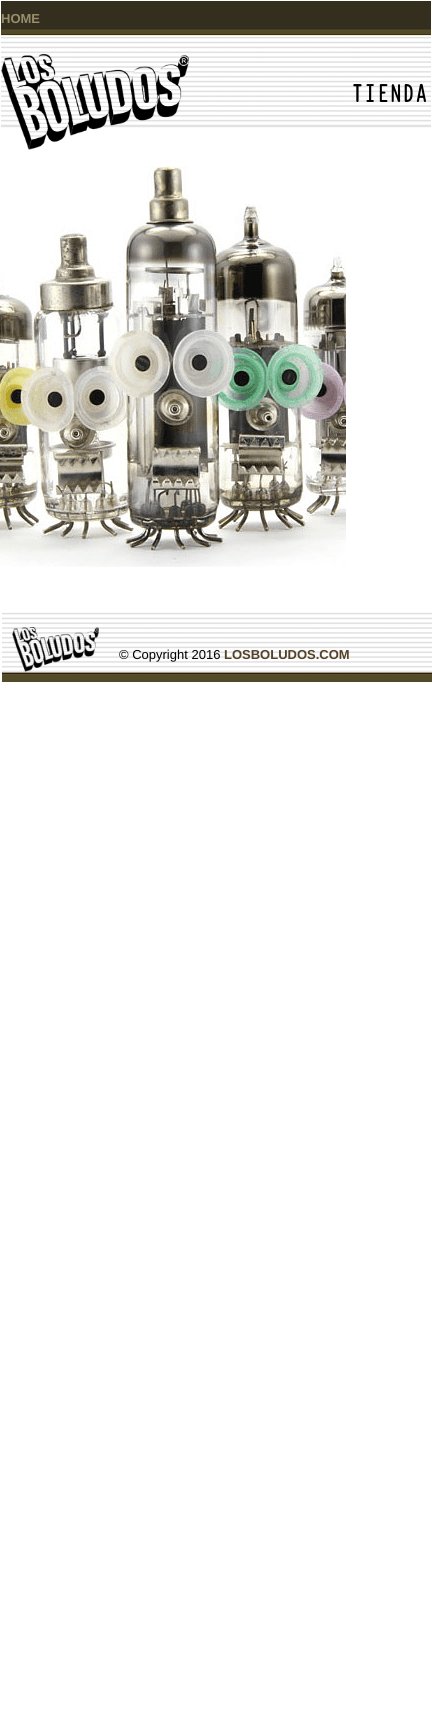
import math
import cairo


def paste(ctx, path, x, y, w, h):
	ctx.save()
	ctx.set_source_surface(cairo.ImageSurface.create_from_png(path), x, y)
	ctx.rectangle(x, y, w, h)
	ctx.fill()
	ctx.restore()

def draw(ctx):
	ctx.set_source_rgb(1, 1, 1)
	ctx.paint()
	paste(ctx, 'media/1.png', 1, 1, 430, 127)
	ctx.select_font_face('Liberation Sans', cairo.FONT_SLANT_NORMAL, cairo.FONT_WEIGHT_BOLD)
	ctx.set_font_size(13)
	ctx.set_source_rgb(0.592, 0.557, 0.424)
	ctx.move_to(1, 23)
	ctx.show_text('HOME')
	paste(ctx, 'media/2.png', 1, 54, 188, 96)
	ctx.select_font_face('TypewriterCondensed', cairo.FONT_SLANT_NORMAL, cairo.FONT_WEIGHT_BOLD)
	ctx.set_font_size(28.5)
	ctx.set_source_rgb(0, 0, 0)
	ctx.move_to(351, 102)
	ctx.show_text('TIENDA')
	paste(ctx, 'media/3.png', 0, 166, 346, 401)
	ctx.set_source_rgb(0.325, 0.29, 0.157)
	ctx.rectangle(2, 675, 430, 7)
	ctx.fill()
	paste(ctx, 'media/4.png', 2, 612, 430, 63)
	paste(ctx, 'media/5.png', 12, 627, 87, 45)
	ctx.select_font_face('Liberation Sans')
	ctx.set_font_size(13)
	ctx.set_source_rgb(0, 0, 0)
	ctx.move_to(119, 659)
	ctx.show_text('© Copyright 2016')
	ctx.select_font_face('Liberation Sans', cairo.FONT_SLANT_NORMAL, cairo.FONT_WEIGHT_BOLD)
	ctx.set_source_rgb(0.325, 0.255, 0.157)
	ctx.move_to(224, 659)
	ctx.show_text('LOSBOLUDOS.COM')


surface = cairo.ImageSurface(cairo.FORMAT_RGB24, 432, 1729)
ctx = cairo.Context(surface)
options = cairo.FontOptions()
options.set_hint_metrics(cairo.HINT_METRICS_OFF)
options.set_hint_style(cairo.HINT_STYLE_NONE)
ctx.set_font_options(options)
ctx.set_miter_limit(4)
draw(ctx)
surface.write_to_png('image.png')
